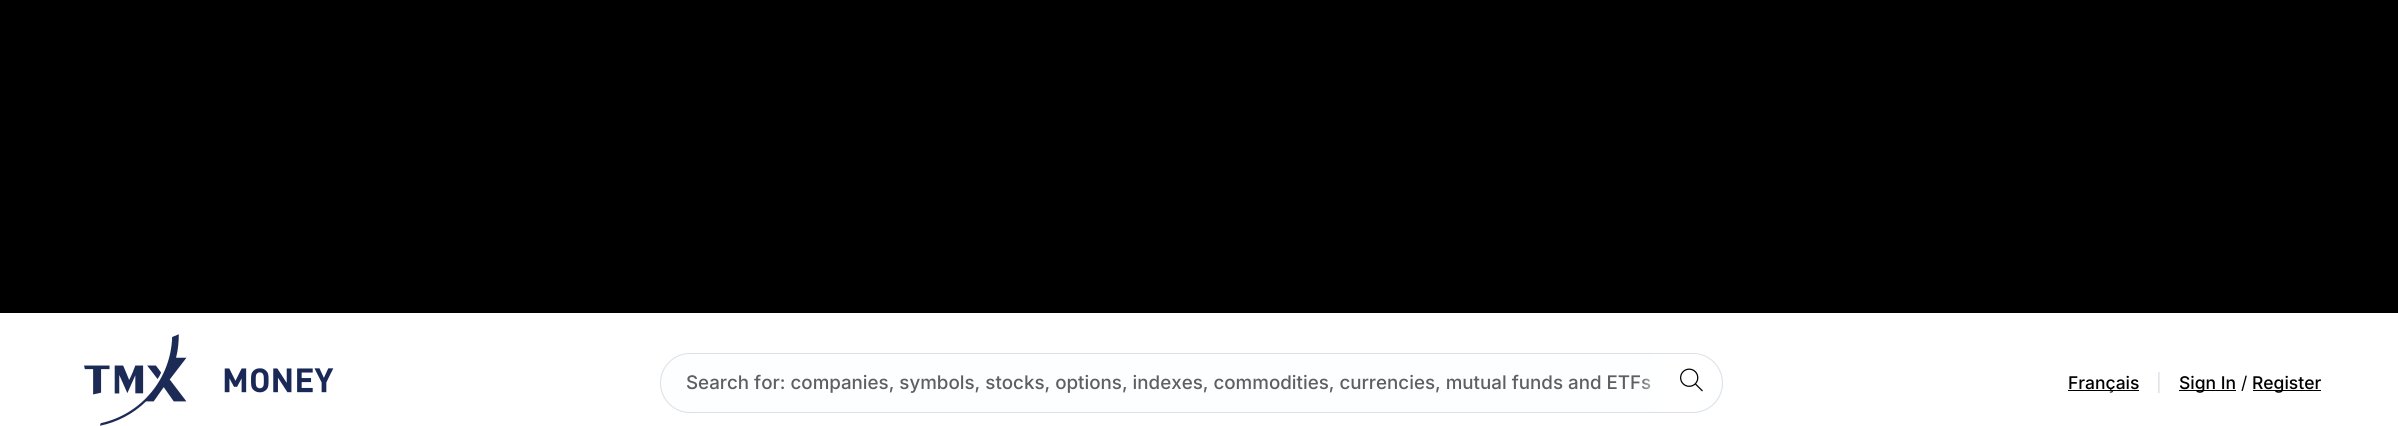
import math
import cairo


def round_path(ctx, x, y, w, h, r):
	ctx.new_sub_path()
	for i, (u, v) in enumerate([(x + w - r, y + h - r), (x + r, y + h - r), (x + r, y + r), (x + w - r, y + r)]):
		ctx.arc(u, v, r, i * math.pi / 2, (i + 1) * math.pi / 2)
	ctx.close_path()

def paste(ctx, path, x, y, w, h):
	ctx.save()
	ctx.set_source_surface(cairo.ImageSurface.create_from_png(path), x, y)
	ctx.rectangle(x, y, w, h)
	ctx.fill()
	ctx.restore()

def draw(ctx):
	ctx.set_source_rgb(1, 1, 1)
	ctx.paint()
	ctx.set_source_rgb(0, 0, 0)
	ctx.rectangle(0, 0, 2398, 313)
	ctx.fill()
	paste(ctx, 'media/1.png', 84, 334, 250, 92)
	ctx.set_source_rgb(0.988, 0.996, 1)
	round_path(ctx, 660.5, 353.5, 1062, 59, 29.5)
	ctx.fill_preserve()
	ctx.set_source_rgb(0.855, 0.878, 0.902)
	ctx.set_line_width(1)
	ctx.stroke()
	ctx.select_font_face('Inter Medium')
	ctx.set_font_size(18.75)
	ctx.set_source_rgb(0.373, 0.373, 0.376)
	ctx.move_to(686, 389)
	ctx.show_text('Search for: companies, symbols, stocks, options, indexes, commodities, currencies, mutual funds and ETFs')
	gradient = cairo.LinearGradient(1639, 383, 1721, 383)
	gradient.add_color_stop_rgba(0, 1, 1, 1, 0)
	gradient.add_color_stop_rgba(0.3, 1, 1, 1, 1)
	gradient.add_color_stop_rgba(1, 1, 1, 1, 1)
	ctx.set_source(gradient)
	ctx.new_path()
	ctx.move_to(1639, 354)
	ctx.line_to(1692.5, 354)
	ctx.curve_to(1708, 354, 1721, 367, 1721, 382.5)
	ctx.curve_to(1721, 398, 1708, 411, 1692.5, 411)
	ctx.line_to(1639, 411)
	ctx.close_path()
	ctx.fill()
	paste(ctx, 'media/2.png', 1680, 368, 23, 24)
	ctx.set_source_rgb(0, 0, 0)
	ctx.rectangle(2068, 390, 71, 1)
	ctx.fill()
	ctx.set_font_size(17.5)
	ctx.move_to(2068, 389)
	ctx.show_text('Français')
	ctx.select_font_face('Inter')
	ctx.set_source_rgb(0.855, 0.878, 0.902)
	ctx.move_to(2156, 389)
	ctx.show_text('|')
	ctx.set_source_rgb(0, 0, 0)
	ctx.rectangle(2179, 390, 57, 1)
	ctx.fill()
	ctx.select_font_face('Inter Medium')
	ctx.move_to(2179, 389)
	ctx.show_text('Sign In')
	ctx.select_font_face('Inter')
	ctx.move_to(2241, 389)
	ctx.show_text('/')
	ctx.rectangle(2253, 390, 68, 1)
	ctx.fill()
	ctx.select_font_face('Inter Medium')
	ctx.move_to(2252, 389)
	ctx.show_text('Register')


surface = cairo.ImageSurface(cairo.FORMAT_RGB24, 2398, 426)
ctx = cairo.Context(surface)
options = cairo.FontOptions()
options.set_hint_metrics(cairo.HINT_METRICS_OFF)
options.set_hint_style(cairo.HINT_STYLE_NONE)
ctx.set_font_options(options)
ctx.set_miter_limit(4)
draw(ctx)
surface.write_to_png('image.png')
